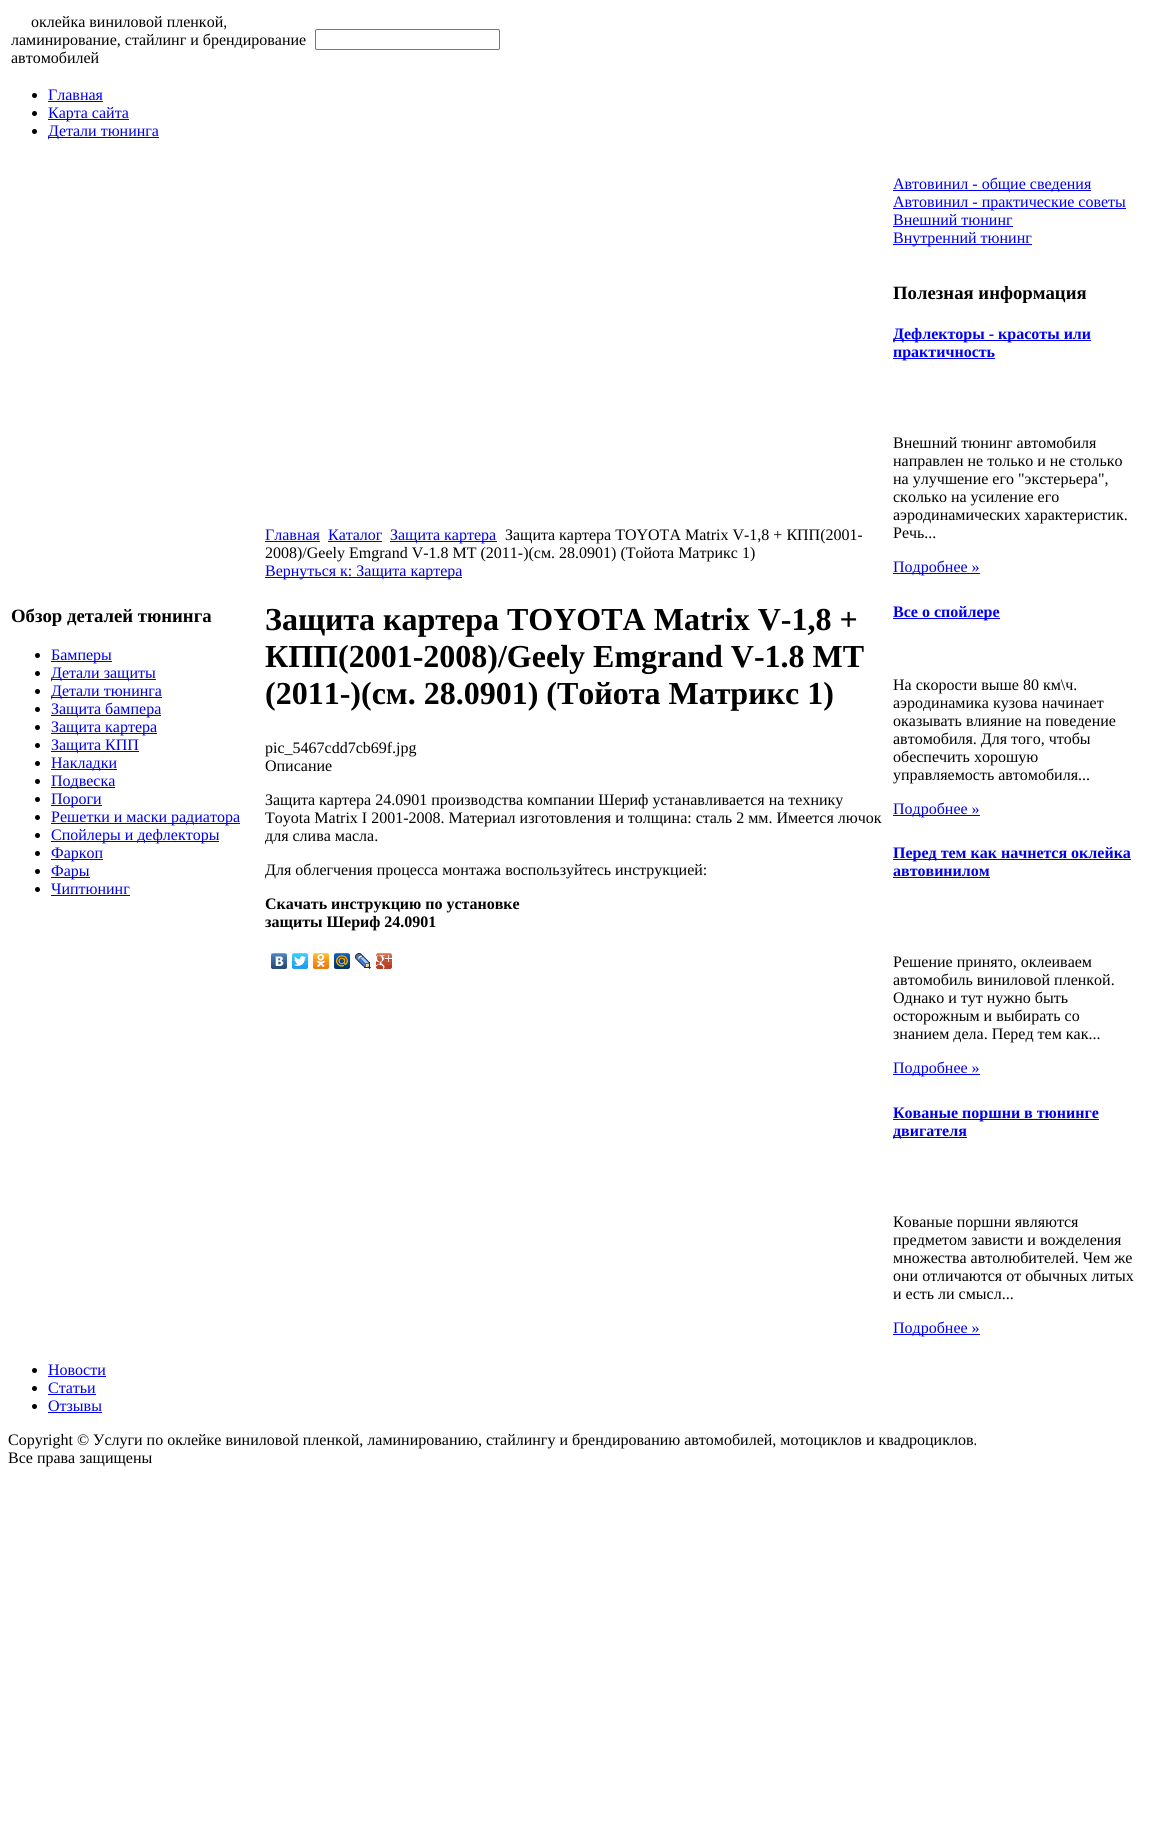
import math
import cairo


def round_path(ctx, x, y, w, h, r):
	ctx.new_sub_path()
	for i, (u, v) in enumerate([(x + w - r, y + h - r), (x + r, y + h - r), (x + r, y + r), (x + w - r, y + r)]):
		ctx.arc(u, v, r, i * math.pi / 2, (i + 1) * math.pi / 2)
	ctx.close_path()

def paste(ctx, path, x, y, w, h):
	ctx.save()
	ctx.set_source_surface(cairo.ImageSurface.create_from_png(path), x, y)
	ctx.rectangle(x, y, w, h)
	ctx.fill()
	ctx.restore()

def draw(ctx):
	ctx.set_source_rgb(1, 1, 1)
	ctx.paint()
	ctx.select_font_face('Liberation Serif')
	ctx.set_font_size(16)
	ctx.set_source_rgb(0, 0, 0)
	for x, y, s in [
		(31, 27, 'оклейка виниловой пленкой,'),
		(11, 45, 'ламинирование, стайлинг и брендирование'),
		(11, 63, 'автомобилей'),
	]:
		ctx.move_to(x, y)
		ctx.show_text(s)
	round_path(ctx, 315.5, 29.5, 184, 20, 1.5)
	ctx.set_source_rgb(0.463, 0.463, 0.463)
	ctx.set_line_width(1)
	ctx.stroke()
	ctx.set_source_rgb(0, 0, 0)
	ctx.arc(34.5, 95.5, 2.5, 0, 2 * math.pi)
	ctx.fill()
	ctx.set_source_rgb(0, 0, 0.933)
	ctx.move_to(48, 100)
	ctx.show_text('Главная')
	ctx.rectangle(48, 101, 55, 1)
	ctx.fill()
	ctx.set_source_rgb(0, 0, 0)
	ctx.arc(34.5, 113.5, 2.5, 0, 2 * math.pi)
	ctx.fill()
	ctx.set_source_rgb(0, 0, 0.933)
	ctx.rectangle(48, 119, 81, 1)
	ctx.fill()
	ctx.move_to(48, 118)
	ctx.show_text('Карта сайта')
	ctx.set_source_rgb(0, 0, 0)
	ctx.new_path()
	ctx.arc(34.5, 131.5, 2.5, 0, 2 * math.pi)
	ctx.fill()
	ctx.set_source_rgb(0, 0, 0.933)
	ctx.rectangle(48, 137, 111, 1)
	ctx.fill()
	ctx.move_to(48, 136)
	ctx.show_text('Детали тюнинга')
	ctx.select_font_face('Liberation Serif', cairo.FONT_SLANT_NORMAL, cairo.FONT_WEIGHT_BOLD)
	ctx.set_font_size(18.75)
	ctx.set_source_rgb(0, 0, 0)
	ctx.move_to(11, 622)
	ctx.show_text('Обзор деталей тюнинга')
	ctx.new_path()
	ctx.arc(37.5, 655.5, 2.5, 0, 2 * math.pi)
	ctx.fill()
	ctx.set_source_rgb(0, 0, 0.933)
	ctx.rectangle(51, 661, 61, 1)
	ctx.fill()
	ctx.select_font_face('Liberation Serif')
	ctx.set_font_size(16)
	ctx.move_to(51, 660)
	ctx.show_text('Бамперы')
	ctx.set_source_rgb(0, 0, 0)
	ctx.new_path()
	ctx.arc(37.5, 673.5, 2.5, 0, 2 * math.pi)
	ctx.fill()
	ctx.set_source_rgb(0, 0, 0.933)
	ctx.rectangle(51, 679, 105, 1)
	ctx.fill()
	ctx.move_to(51, 678)
	ctx.show_text('Детали защиты')
	ctx.set_source_rgb(0, 0, 0)
	ctx.new_path()
	ctx.arc(37.5, 691.5, 2.5, 0, 2 * math.pi)
	ctx.fill()
	ctx.set_source_rgb(0, 0, 0.933)
	ctx.rectangle(51, 697, 111, 1)
	ctx.fill()
	ctx.move_to(51, 696)
	ctx.show_text('Детали тюнинга')
	ctx.set_source_rgb(0, 0, 0)
	ctx.new_path()
	ctx.arc(37.5, 709.5, 2.5, 0, 2 * math.pi)
	ctx.fill()
	ctx.set_source_rgb(0, 0, 0.933)
	ctx.rectangle(51, 715, 110, 1)
	ctx.fill()
	ctx.move_to(51, 714)
	ctx.show_text('Защита бампера')
	ctx.set_source_rgb(0, 0, 0)
	ctx.new_path()
	ctx.arc(37.5, 727.5, 2.5, 0, 2 * math.pi)
	ctx.fill()
	ctx.set_source_rgb(0, 0, 0.933)
	ctx.rectangle(51, 733, 106, 1)
	ctx.fill()
	ctx.move_to(51, 732)
	ctx.show_text('Защита картера')
	ctx.set_source_rgb(0, 0, 0)
	ctx.new_path()
	ctx.arc(37.5, 745.5, 2.5, 0, 2 * math.pi)
	ctx.fill()
	ctx.set_source_rgb(0, 0, 0.933)
	ctx.rectangle(51, 751, 88, 1)
	ctx.fill()
	ctx.move_to(51, 750)
	ctx.show_text('Защита КПП')
	ctx.set_source_rgb(0, 0, 0)
	ctx.new_path()
	ctx.arc(37.5, 763.5, 2.5, 0, 2 * math.pi)
	ctx.fill()
	ctx.set_source_rgb(0, 0, 0.933)
	ctx.rectangle(51, 769, 66, 1)
	ctx.fill()
	ctx.move_to(51, 768)
	ctx.show_text('Накладки')
	ctx.set_source_rgb(0, 0, 0)
	ctx.new_path()
	ctx.arc(37.5, 781.5, 2.5, 0, 2 * math.pi)
	ctx.fill()
	ctx.set_source_rgb(0, 0, 0.933)
	ctx.rectangle(51, 787, 64, 1)
	ctx.fill()
	ctx.move_to(51, 786)
	ctx.show_text('Подвеска')
	ctx.set_source_rgb(0, 0, 0)
	ctx.new_path()
	ctx.arc(37.5, 799.5, 2.5, 0, 2 * math.pi)
	ctx.fill()
	ctx.set_source_rgb(0, 0, 0.933)
	ctx.rectangle(51, 805, 51, 1)
	ctx.fill()
	ctx.move_to(51, 804)
	ctx.show_text('Пороги')
	ctx.set_source_rgb(0, 0, 0)
	ctx.new_path()
	ctx.arc(37.5, 817.5, 2.5, 0, 2 * math.pi)
	ctx.fill()
	ctx.set_source_rgb(0, 0, 0.933)
	ctx.rectangle(51, 823, 189, 1)
	ctx.fill()
	ctx.move_to(51, 822)
	ctx.show_text('Решетки и маски радиатора')
	ctx.set_source_rgb(0, 0, 0)
	ctx.new_path()
	ctx.arc(37.5, 835.5, 2.5, 0, 2 * math.pi)
	ctx.fill()
	ctx.set_source_rgb(0, 0, 0.933)
	ctx.rectangle(51, 841, 168, 1)
	ctx.fill()
	ctx.move_to(51, 840)
	ctx.show_text('Спойлеры и дефлекторы')
	ctx.set_source_rgb(0, 0, 0)
	ctx.new_path()
	ctx.arc(37.5, 853.5, 2.5, 0, 2 * math.pi)
	ctx.fill()
	ctx.set_source_rgb(0, 0, 0.933)
	ctx.rectangle(51, 859, 52, 1)
	ctx.fill()
	ctx.move_to(51, 858)
	ctx.show_text('Фаркоп')
	ctx.set_source_rgb(0, 0, 0)
	ctx.new_path()
	ctx.arc(37.5, 871.5, 2.5, 0, 2 * math.pi)
	ctx.fill()
	ctx.set_source_rgb(0, 0, 0.933)
	ctx.rectangle(51, 877, 39, 1)
	ctx.fill()
	ctx.move_to(51, 876)
	ctx.show_text('Фары')
	ctx.set_source_rgb(0, 0, 0)
	ctx.new_path()
	ctx.arc(37.5, 889.5, 2.5, 0, 2 * math.pi)
	ctx.fill()
	ctx.set_source_rgb(0, 0, 0.933)
	ctx.move_to(51, 894)
	ctx.show_text('Чиптюнинг')
	ctx.rectangle(51, 895, 79, 1)
	ctx.fill()
	ctx.move_to(265, 540)
	ctx.show_text('Главная')
	ctx.rectangle(265, 541, 55, 1)
	ctx.fill()
	ctx.move_to(328, 540)
	ctx.show_text('Каталог')
	ctx.rectangle(328, 541, 54, 1)
	ctx.fill()
	ctx.rectangle(390, 541, 107, 1)
	ctx.fill()
	ctx.move_to(390, 540)
	ctx.show_text('Защита картера')
	ctx.set_source_rgb(0, 0, 0)
	ctx.move_to(505, 540)
	ctx.show_text('Защита картера TOYOTA Matrix V-1,8 + КПП(2001-')
	ctx.move_to(265, 558)
	ctx.show_text('2008)/Geely Emgrand V-1.8 MT (2011-)(см. 28.0901) (Тойота Матрикс 1)')
	ctx.set_source_rgb(0, 0, 0.933)
	ctx.rectangle(265, 577, 197, 1)
	ctx.fill()
	ctx.move_to(265, 576)
	ctx.show_text('Вернуться к: Защита картера')
	ctx.select_font_face('Liberation Serif', cairo.FONT_SLANT_NORMAL, cairo.FONT_WEIGHT_BOLD)
	ctx.set_font_size(32)
	ctx.set_source_rgb(0, 0, 0)
	for x, y, s in [
		(265, 630, 'Защита картера TOYOTA Matrix V-1,8 +'),
		(265, 667, 'КПП(2001-2008)/Geely Emgrand V-1.8 MT'),
		(265, 704, '(2011-)(см. 28.0901) (Тойота Матрикс 1)'),
	]:
		ctx.move_to(x, y)
		ctx.show_text(s)
	ctx.select_font_face('Liberation Serif')
	ctx.set_font_size(16)
	for x, y, s in [
		(265, 753, 'pic_5467cdd7cb69f.jpg'),
		(265, 771, 'Описание'),
		(265, 805, 'Защита картера 24.0901 производства компании Шериф устанавливается на технику'),
		(265, 823, 'Toyota Matrix I 2001-2008. Материал изготовления и толщина: сталь 2 мм. Имеется лючок'),
		(265, 841, 'для слива масла.'),
		(265, 875, 'Для облегчения процесса монтажа воспользуйтесь инструкцией:'),
	]:
		ctx.move_to(x, y)
		ctx.show_text(s)
	ctx.select_font_face('Liberation Serif', cairo.FONT_SLANT_NORMAL, cairo.FONT_WEIGHT_BOLD)
	ctx.move_to(265, 909)
	ctx.show_text('Скачать инструкцию по установке')
	ctx.move_to(265, 927)
	ctx.show_text('защиты Шериф 24.0901')
	paste(ctx, 'media/1.png', 271, 953, 16, 16)
	paste(ctx, 'media/2.png', 292, 953, 16, 16)
	paste(ctx, 'media/3.png', 313, 953, 16, 16)
	paste(ctx, 'media/4.png', 334, 953, 16, 16)
	paste(ctx, 'media/5.png', 355, 953, 16, 16)
	paste(ctx, 'media/6.png', 376, 953, 16, 16)
	ctx.set_source_rgb(0, 0, 0.933)
	ctx.rectangle(893, 190, 198, 1)
	ctx.fill()
	ctx.select_font_face('Liberation Serif')
	ctx.move_to(893, 189)
	ctx.show_text('Автовинил - общие сведения')
	ctx.rectangle(893, 208, 233, 1)
	ctx.fill()
	ctx.move_to(893, 207)
	ctx.show_text('Автовинил - практические советы')
	ctx.move_to(893, 225)
	ctx.show_text('Внешний тюнинг')
	ctx.rectangle(893, 226, 120, 1)
	ctx.fill()
	ctx.rectangle(893, 244, 139, 1)
	ctx.fill()
	ctx.move_to(893, 243)
	ctx.show_text('Внутренний тюнинг')
	ctx.select_font_face('Liberation Serif', cairo.FONT_SLANT_NORMAL, cairo.FONT_WEIGHT_BOLD)
	ctx.set_font_size(18.75)
	ctx.set_source_rgb(0, 0, 0)
	ctx.move_to(893, 299)
	ctx.show_text('Полезная информация')
	ctx.set_source_rgb(0, 0, 0.933)
	ctx.rectangle(893, 340, 198, 1)
	ctx.fill()
	ctx.set_font_size(16)
	ctx.move_to(893, 339)
	ctx.show_text('Дефлекторы - красоты или')
	ctx.rectangle(893, 358, 102, 1)
	ctx.fill()
	ctx.move_to(893, 357)
	ctx.show_text('практичность')
	ctx.select_font_face('Liberation Serif')
	ctx.set_source_rgb(0, 0, 0)
	for x, y, s in [
		(893, 448, 'Внешний тюнинг автомобиля'),
		(893, 466, 'направлен не только и не столько'),
		(893, 484, 'на улучшение его "экстерьера",'),
		(893, 502, 'сколько на усиление его'),
		(893, 520, 'аэродинамических характеристик.'),
		(893, 538, 'Речь...'),
	]:
		ctx.move_to(x, y)
		ctx.show_text(s)
	ctx.set_source_rgb(0, 0, 0.933)
	ctx.rectangle(893, 573, 87, 1)
	ctx.fill()
	ctx.move_to(893, 572)
	ctx.show_text('Подробнее »')
	ctx.rectangle(893, 618, 107, 1)
	ctx.fill()
	ctx.select_font_face('Liberation Serif', cairo.FONT_SLANT_NORMAL, cairo.FONT_WEIGHT_BOLD)
	ctx.move_to(893, 617)
	ctx.show_text('Все о спойлере')
	ctx.select_font_face('Liberation Serif')
	ctx.set_source_rgb(0, 0, 0)
	for x, y, s in [
		(893, 690, 'На скорости выше 80 км\\ч.'),
		(893, 708, 'аэродинамика кузова начинает'),
		(893, 726, 'оказывать влияние на поведение'),
		(893, 744, 'автомобиля. Для того, чтобы'),
		(893, 762, 'обеспечить хорошую'),
		(893, 780, 'управляемость автомобиля...'),
	]:
		ctx.move_to(x, y)
		ctx.show_text(s)
	ctx.set_source_rgb(0, 0, 0.933)
	ctx.rectangle(893, 815, 87, 1)
	ctx.fill()
	ctx.move_to(893, 814)
	ctx.show_text('Подробнее »')
	ctx.rectangle(893, 859, 238, 1)
	ctx.fill()
	ctx.select_font_face('Liberation Serif', cairo.FONT_SLANT_NORMAL, cairo.FONT_WEIGHT_BOLD)
	ctx.move_to(893, 858)
	ctx.show_text('Перед тем как начнется оклейка')
	ctx.move_to(893, 876)
	ctx.show_text('автовинилом')
	ctx.rectangle(893, 877, 97, 1)
	ctx.fill()
	ctx.select_font_face('Liberation Serif')
	ctx.set_source_rgb(0, 0, 0)
	for x, y, s in [
		(893, 967, 'Решение принято, оклеиваем'),
		(893, 985, 'автомобиль виниловой пленкой.'),
		(893, 1003, 'Однако и тут нужно быть'),
		(893, 1021, 'осторожным и выбирать со'),
		(893, 1039, 'знанием дела. Перед тем как...'),
	]:
		ctx.move_to(x, y)
		ctx.show_text(s)
	ctx.set_source_rgb(0, 0, 0.933)
	ctx.rectangle(893, 1074, 87, 1)
	ctx.fill()
	ctx.move_to(893, 1073)
	ctx.show_text('Подробнее »')
	ctx.rectangle(893, 1119, 206, 1)
	ctx.fill()
	ctx.select_font_face('Liberation Serif', cairo.FONT_SLANT_NORMAL, cairo.FONT_WEIGHT_BOLD)
	ctx.move_to(893, 1118)
	ctx.show_text('Кованые поршни в тюнинге')
	ctx.rectangle(893, 1137, 74, 1)
	ctx.fill()
	ctx.move_to(893, 1136)
	ctx.show_text('двигателя')
	ctx.select_font_face('Liberation Serif')
	ctx.set_source_rgb(0, 0, 0)
	for x, y, s in [
		(893, 1227, 'Кованые поршни являются'),
		(893, 1245, 'предметом зависти и вожделения'),
		(893, 1263, 'множества автолюбителей. Чем же'),
		(893, 1281, 'они отличаются от обычных литых'),
		(893, 1299, 'и есть ли смысл...'),
	]:
		ctx.move_to(x, y)
		ctx.show_text(s)
	ctx.set_source_rgb(0, 0, 0.933)
	ctx.rectangle(893, 1334, 87, 1)
	ctx.fill()
	ctx.move_to(893, 1333)
	ctx.show_text('Подробнее »')
	ctx.set_source_rgb(0, 0, 0)
	ctx.new_path()
	ctx.arc(34.5, 1370.5, 2.5, 0, 2 * math.pi)
	ctx.fill()
	ctx.set_source_rgb(0, 0, 0.933)
	ctx.move_to(48, 1375)
	ctx.show_text('Новости')
	ctx.rectangle(48, 1376, 58, 1)
	ctx.fill()
	ctx.set_source_rgb(0, 0, 0)
	ctx.arc(34.5, 1388.5, 2.5, 0, 2 * math.pi)
	ctx.fill()
	ctx.set_source_rgb(0, 0, 0.933)
	ctx.move_to(48, 1393)
	ctx.show_text('Статьи')
	ctx.rectangle(48, 1394, 48, 1)
	ctx.fill()
	ctx.set_source_rgb(0, 0, 0)
	ctx.arc(34.5, 1406.5, 2.5, 0, 2 * math.pi)
	ctx.fill()
	ctx.set_source_rgb(0, 0, 0.933)
	ctx.move_to(48, 1411)
	ctx.show_text('Отзывы')
	ctx.rectangle(48, 1412, 54, 1)
	ctx.fill()
	ctx.set_source_rgb(0, 0, 0)
	ctx.move_to(8, 1445)
	ctx.show_text('Copyright © Услуги по оклейке виниловой пленкой, ламинированию, стайлингу и брендированию автомобилей, мотоциклов и квадроциклов.')
	ctx.move_to(8, 1463)
	ctx.show_text('Все права защищены')


surface = cairo.ImageSurface(cairo.FORMAT_RGB24, 1154, 1845)
ctx = cairo.Context(surface)
options = cairo.FontOptions()
options.set_hint_metrics(cairo.HINT_METRICS_OFF)
options.set_hint_style(cairo.HINT_STYLE_NONE)
ctx.set_font_options(options)
ctx.set_miter_limit(4)
draw(ctx)
surface.write_to_png('image.png')
